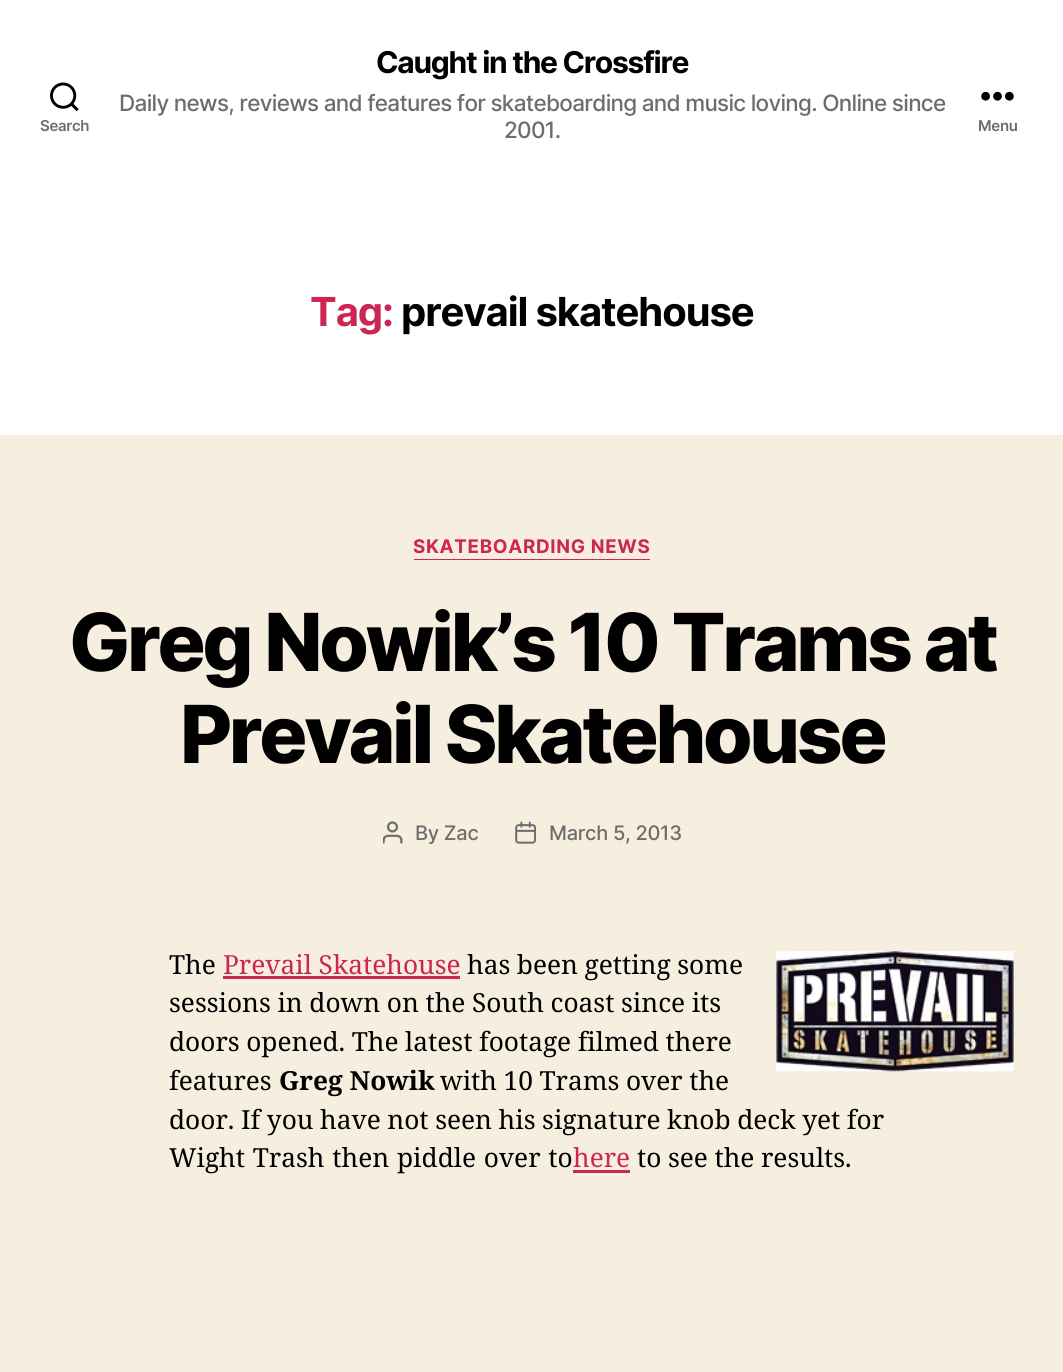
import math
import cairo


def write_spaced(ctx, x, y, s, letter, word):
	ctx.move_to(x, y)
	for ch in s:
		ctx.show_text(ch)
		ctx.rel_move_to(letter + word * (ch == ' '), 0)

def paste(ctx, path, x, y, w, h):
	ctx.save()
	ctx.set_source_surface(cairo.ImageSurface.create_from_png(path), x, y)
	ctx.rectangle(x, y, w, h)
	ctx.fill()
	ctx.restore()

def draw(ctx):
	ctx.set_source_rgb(0.961, 0.937, 0.878)
	ctx.paint()
	ctx.set_source_rgb(1, 1, 1)
	ctx.rectangle(0, 0, 1063, 435)
	ctx.fill()
	paste(ctx, 'media/1.png', 50, 82, 29, 30)
	ctx.select_font_face('Inter SemiBold')
	ctx.set_font_size(15)
	ctx.set_source_rgb(0.427, 0.427, 0.427)
	write_spaced(ctx, 40, 131, 'Search', -0.3, 0)
	ctx.select_font_face('Inter', cairo.FONT_SLANT_NORMAL, cairo.FONT_WEIGHT_BOLD)
	ctx.set_font_size(30)
	ctx.set_source_rgb(0, 0, 0)
	write_spaced(ctx, 376, 73, 'Caught in the Crossfire', -1.25, 0)
	ctx.select_font_face('Inter Medium')
	ctx.set_font_size(22.5)
	ctx.set_source_rgb(0.427, 0.427, 0.427)
	write_spaced(ctx, 119, 111, 'Daily news, reviews and features for skateboarding and music loving. Online since', -0.7, 0)
	write_spaced(ctx, 504, 138, '2001.', -0.7, 0)
	paste(ctx, 'media/2.png', 981, 91, 33, 10)
	ctx.select_font_face('Inter SemiBold')
	ctx.set_font_size(15)
	write_spaced(ctx, 978, 131, 'Menu', -0.3, 0)
	ctx.select_font_face('Inter', cairo.FONT_SLANT_NORMAL, cairo.FONT_WEIGHT_BOLD)
	ctx.set_font_size(40)
	ctx.set_source_rgb(0.804, 0.149, 0.325)
	write_spaced(ctx, 310, 326, 'Tag:', -1.1, 0)
	ctx.set_source_rgb(0, 0, 0)
	write_spaced(ctx, 401, 326, 'prevail skatehouse', -1.1, 0)
	ctx.set_source_rgb(0.804, 0.149, 0.325)
	ctx.rectangle(414, 559, 236, 1)
	ctx.fill()
	ctx.set_font_size(18.75)
	write_spaced(ctx, 413, 553, 'SKATEBOARDING NEWS', 0.7, 0)
	ctx.select_font_face('Inter ExtraBold')
	ctx.set_font_size(80)
	ctx.set_source_rgb(0, 0, 0)
	write_spaced(ctx, 69, 671, 'Greg Nowik’s 10 Trams at', -3.3, 0)
	write_spaced(ctx, 180, 763, 'Prevail Skatehouse', -3.3, 0)
	paste(ctx, 'media/3.png', 383, 821, 20, 23)
	ctx.select_font_face('Inter Medium')
	ctx.set_font_size(20)
	ctx.set_source_rgb(0.427, 0.427, 0.427)
	write_spaced(ctx, 415, 840, 'By Zac', -0.3, 0)
	paste(ctx, 'media/4.png', 515, 821, 21, 23)
	write_spaced(ctx, 549, 840, 'March 5, 2013', -0.3, 0)
	ctx.select_font_face('Noto Serif')
	ctx.set_font_size(26.25)
	ctx.set_source_rgb(0, 0, 0)
	ctx.move_to(169, 974)
	ctx.show_text('The')
	ctx.set_source_rgb(0.804, 0.149, 0.325)
	ctx.move_to(223, 974)
	ctx.show_text('Prevail Skatehouse')
	ctx.rectangle(223, 976, 237, 3)
	ctx.fill()
	ctx.set_source_rgb(0, 0, 0)
	write_spaced(ctx, 467, 974, 'has been getting some', 0, -0.25)
	paste(ctx, 'media/5.png', 776, 951, 238, 121)
	write_spaced(ctx, 169, 1012, 'sessions in down on the South coast since its', 0, -0.25)
	write_spaced(ctx, 169, 1051, 'doors opened. The latest footage filmed there', 0, -0.25)
	ctx.move_to(169, 1090)
	ctx.show_text('features')
	ctx.select_font_face('Noto Serif', cairo.FONT_SLANT_NORMAL, cairo.FONT_WEIGHT_BOLD)
	ctx.move_to(279, 1090)
	ctx.show_text('Greg Nowik')
	ctx.select_font_face('Noto Serif')
	write_spaced(ctx, 440, 1090, 'with 10 Trams over the', 0, -0.25)
	write_spaced(ctx, 169, 1129, 'door. If you have not seen his signature knob deck yet for', 0, -0.25)
	write_spaced(ctx, 169, 1167, 'Wight Trash then piddle over to', 0, 1)
	ctx.set_source_rgb(0.804, 0.149, 0.325)
	ctx.move_to(573, 1167)
	ctx.show_text('here')
	ctx.rectangle(573, 1170, 57, 3)
	ctx.fill()
	ctx.set_source_rgb(0, 0, 0)
	write_spaced(ctx, 637, 1167, 'to see the results.', 0, -0.25)


surface = cairo.ImageSurface(cairo.FORMAT_RGB24, 1063, 1372)
ctx = cairo.Context(surface)
options = cairo.FontOptions()
options.set_hint_metrics(cairo.HINT_METRICS_OFF)
options.set_hint_style(cairo.HINT_STYLE_NONE)
ctx.set_font_options(options)
ctx.set_miter_limit(4)
draw(ctx)
surface.write_to_png('image.png')
